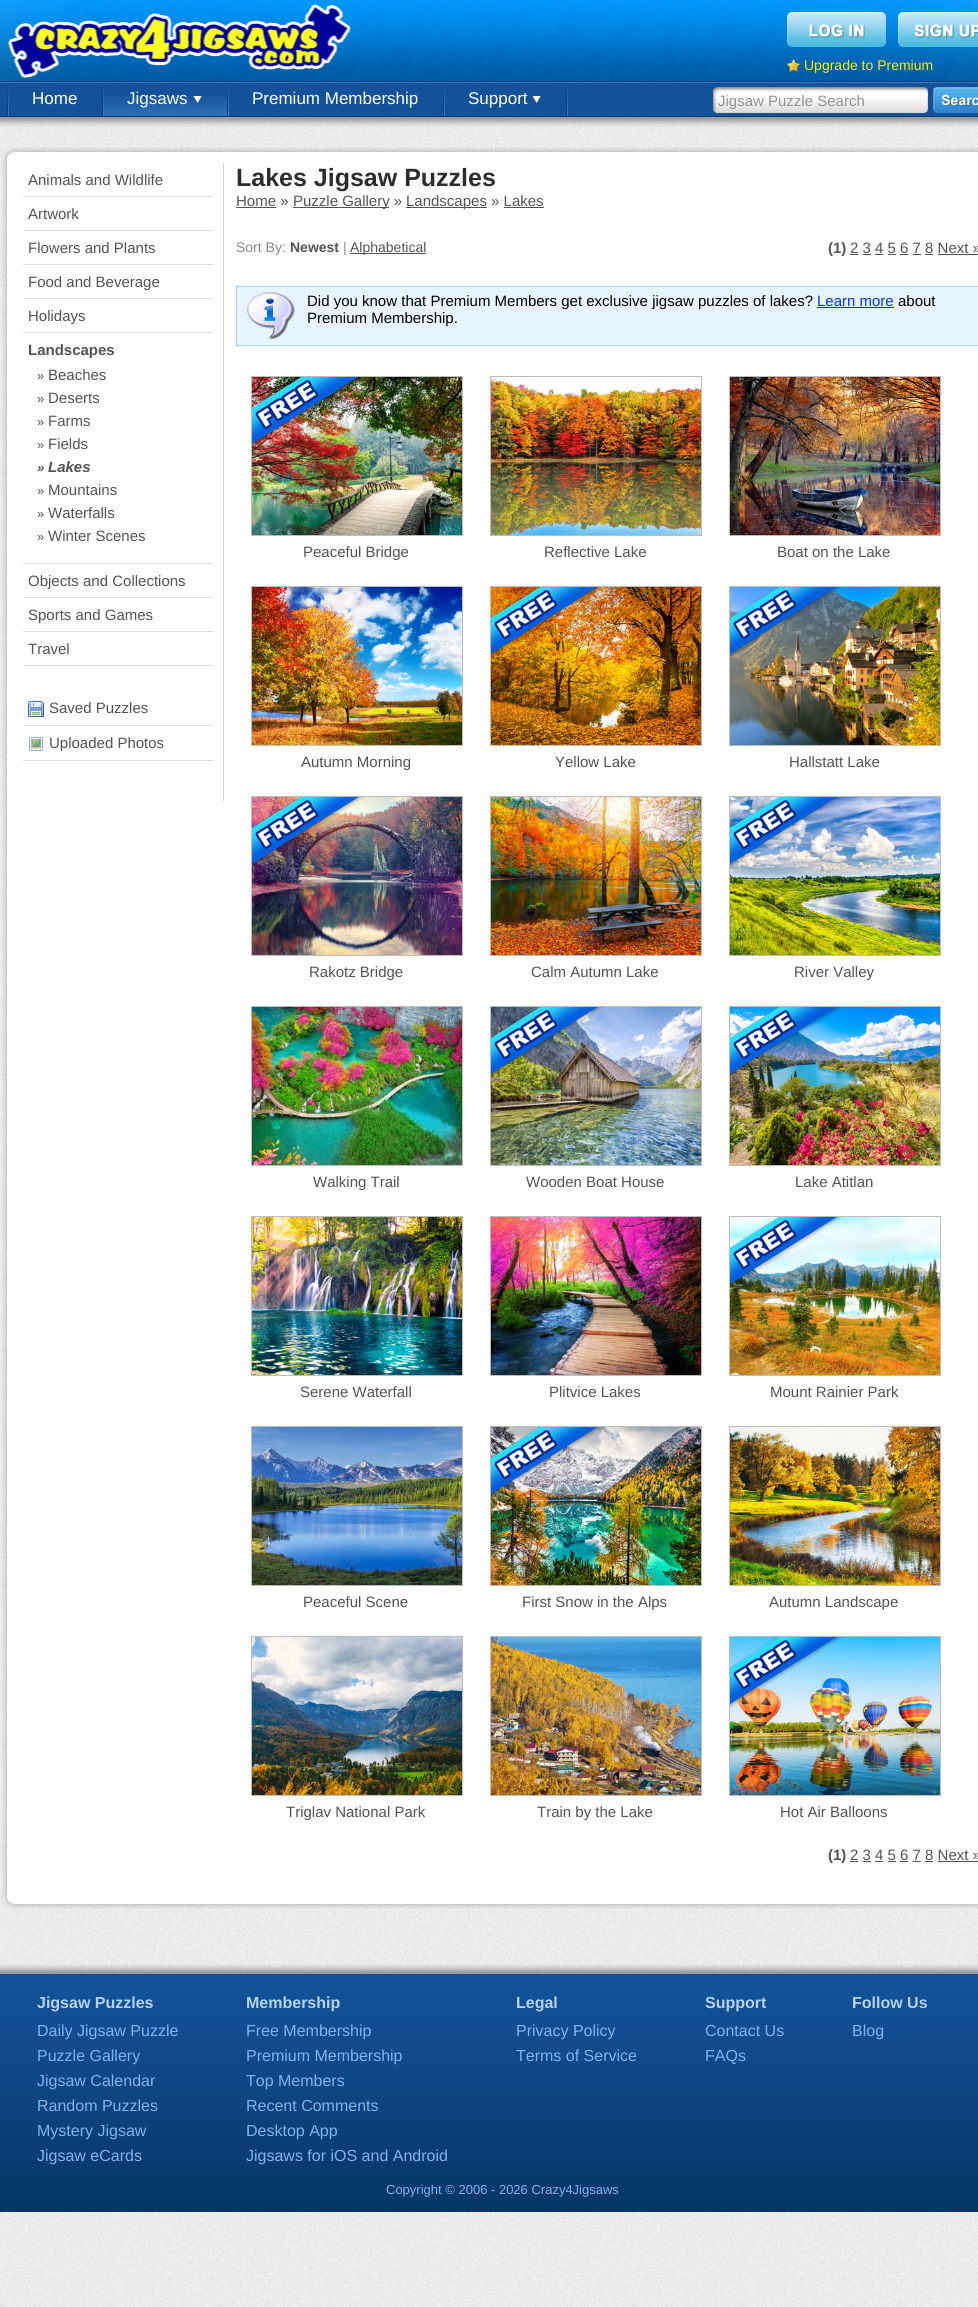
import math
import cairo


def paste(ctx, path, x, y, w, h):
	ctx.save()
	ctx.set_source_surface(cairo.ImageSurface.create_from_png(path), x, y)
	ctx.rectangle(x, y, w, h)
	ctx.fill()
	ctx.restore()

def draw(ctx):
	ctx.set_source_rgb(1, 1, 1)
	ctx.paint()
	paste(ctx, 'media/1.png', 0, 117, 978, 2190)
	paste(ctx, 'media/2.png', 0, 81, 978, 36)
	paste(ctx, 'media/3.png', 0, 0, 978, 81)
	paste(ctx, 'media/4.png', 787, 12, 99, 35)
	paste(ctx, 'media/5.png', 898, 12, 80, 35)
	paste(ctx, 'media/6.png', 787, 59, 13, 13)
	ctx.select_font_face('Liberation Sans')
	ctx.set_font_size(14)
	ctx.set_source_rgb(0.996, 0.937, 0)
	ctx.move_to(804, 70)
	ctx.show_text('Upgrade to Premium')
	paste(ctx, 'media/7.png', 566, 83, 2, 33)
	paste(ctx, 'media/7.png', 7, 83, 2, 33)
	ctx.set_font_size(17)
	ctx.set_source_rgb(1, 1, 1)
	ctx.move_to(32, 104)
	ctx.show_text('Home')
	paste(ctx, 'media/8.png', 104, 96, 123, 20)
	paste(ctx, 'media/7.png', 102, 83, 2, 33)
	ctx.move_to(127, 104)
	ctx.show_text('Jigsaws')
	paste(ctx, 'media/9.png', 193, 96, 9, 7)
	paste(ctx, 'media/7.png', 227, 83, 2, 33)
	ctx.move_to(252, 104)
	ctx.show_text('Premium Membership')
	paste(ctx, 'media/7.png', 443, 83, 2, 33)
	ctx.move_to(468, 104)
	ctx.show_text('Support')
	paste(ctx, 'media/10.png', 532, 96, 9, 7)
	paste(ctx, 'media/11.png', 713, 87, 215, 26)
	ctx.set_font_size(15)
	ctx.set_source_rgb(0.576, 0.576, 0.576)
	ctx.move_to(718, 106)
	ctx.show_text('Jigsaw Puzzle Search')
	paste(ctx, 'media/12.png', 933, 87, 45, 26)
	paste(ctx, 'media/13.png', 0, 117, 978, 10)
	paste(ctx, 'media/14.png', 2, 147, 976, 13)
	paste(ctx, 'media/15.png', 2, 160, 976, 1736)
	ctx.set_source_rgb(0.827, 0.827, 0.827)
	ctx.rectangle(223, 163, 1, 638)
	ctx.fill()
	ctx.set_source_rgb(0.871, 0.867, 0.867)
	ctx.rectangle(23, 196, 190, 1)
	ctx.fill()
	ctx.set_source_rgb(0.329, 0.325, 0.325)
	ctx.move_to(28, 185)
	ctx.show_text('Animals and Wildlife')
	ctx.set_source_rgb(0.871, 0.867, 0.867)
	ctx.rectangle(23, 230, 190, 1)
	ctx.fill()
	ctx.set_source_rgb(0.329, 0.325, 0.325)
	ctx.move_to(28, 219)
	ctx.show_text('Artwork')
	ctx.set_source_rgb(0.871, 0.867, 0.867)
	ctx.rectangle(23, 264, 190, 1)
	ctx.fill()
	ctx.set_source_rgb(0.329, 0.325, 0.325)
	ctx.move_to(28, 253)
	ctx.show_text('Flowers and Plants')
	ctx.set_source_rgb(0.871, 0.867, 0.867)
	ctx.rectangle(23, 298, 190, 1)
	ctx.fill()
	ctx.set_source_rgb(0.329, 0.325, 0.325)
	ctx.move_to(28, 287)
	ctx.show_text('Food and Beverage')
	ctx.set_source_rgb(0.871, 0.867, 0.867)
	ctx.rectangle(23, 332, 190, 1)
	ctx.fill()
	ctx.set_source_rgb(0.329, 0.325, 0.325)
	ctx.move_to(28, 321)
	ctx.show_text('Holidays')
	ctx.set_source_rgb(0.871, 0.867, 0.867)
	ctx.rectangle(23, 563, 190, 1)
	ctx.fill()
	ctx.select_font_face('Liberation Sans', cairo.FONT_SLANT_NORMAL, cairo.FONT_WEIGHT_BOLD)
	ctx.set_source_rgb(0.329, 0.325, 0.325)
	ctx.move_to(28, 355)
	ctx.show_text('Landscapes')
	ctx.select_font_face('Liberation Sans')
	ctx.set_font_size(13)
	ctx.move_to(37, 380)
	ctx.show_text('»')
	ctx.set_font_size(15)
	ctx.move_to(48, 380)
	ctx.show_text('Beaches')
	ctx.set_font_size(13)
	ctx.move_to(37, 403)
	ctx.show_text('»')
	ctx.set_font_size(15)
	ctx.move_to(48, 403)
	ctx.show_text('Deserts')
	ctx.set_font_size(13)
	ctx.move_to(37, 426)
	ctx.show_text('»')
	ctx.set_font_size(15)
	ctx.move_to(48, 426)
	ctx.show_text('Farms')
	ctx.set_font_size(13)
	ctx.move_to(37, 449)
	ctx.show_text('»')
	ctx.set_font_size(15)
	ctx.move_to(48, 449)
	ctx.show_text('Fields')
	ctx.select_font_face('Liberation Sans', cairo.FONT_SLANT_ITALIC, cairo.FONT_WEIGHT_BOLD)
	ctx.set_font_size(13)
	ctx.move_to(37, 472)
	ctx.show_text('»')
	ctx.set_font_size(15)
	ctx.move_to(48, 472)
	ctx.show_text('Lakes')
	ctx.select_font_face('Liberation Sans')
	ctx.set_font_size(13)
	ctx.move_to(37, 495)
	ctx.show_text('»')
	ctx.set_font_size(15)
	ctx.move_to(48, 495)
	ctx.show_text('Mountains')
	ctx.set_font_size(13)
	ctx.move_to(37, 518)
	ctx.show_text('»')
	ctx.set_font_size(15)
	ctx.move_to(48, 518)
	ctx.show_text('Waterfalls')
	ctx.set_font_size(13)
	ctx.move_to(37, 541)
	ctx.show_text('»')
	ctx.set_font_size(15)
	ctx.move_to(48, 541)
	ctx.show_text('Winter Scenes')
	ctx.set_source_rgb(0.871, 0.867, 0.867)
	ctx.rectangle(23, 597, 190, 1)
	ctx.fill()
	ctx.set_source_rgb(0.329, 0.325, 0.325)
	ctx.move_to(28, 586)
	ctx.show_text('Objects and Collections')
	ctx.set_source_rgb(0.871, 0.867, 0.867)
	ctx.rectangle(23, 631, 190, 1)
	ctx.fill()
	ctx.set_source_rgb(0.329, 0.325, 0.325)
	ctx.move_to(28, 620)
	ctx.show_text('Sports and Games')
	ctx.set_source_rgb(0.871, 0.867, 0.867)
	ctx.rectangle(23, 665, 190, 1)
	ctx.fill()
	ctx.set_source_rgb(0.329, 0.325, 0.325)
	ctx.move_to(28, 654)
	ctx.show_text('Travel')
	ctx.set_source_rgb(0.871, 0.867, 0.867)
	ctx.rectangle(23, 725, 190, 1)
	ctx.fill()
	paste(ctx, 'media/16.png', 28, 701, 16, 16)
	ctx.set_source_rgb(0.329, 0.325, 0.325)
	ctx.move_to(49, 713)
	ctx.show_text('Saved Puzzles')
	ctx.set_source_rgb(0.871, 0.867, 0.867)
	ctx.rectangle(23, 760, 190, 1)
	ctx.fill()
	paste(ctx, 'media/17.png', 29, 737, 14, 14)
	ctx.set_source_rgb(0.329, 0.325, 0.325)
	ctx.move_to(49, 748)
	ctx.show_text('Uploaded Photos')
	ctx.select_font_face('Liberation Sans', cairo.FONT_SLANT_NORMAL, cairo.FONT_WEIGHT_BOLD)
	ctx.set_font_size(25)
	ctx.set_source_rgb(0.176, 0.176, 0.176)
	ctx.move_to(236, 186)
	ctx.show_text('Lakes Jigsaw Puzzles')
	ctx.select_font_face('Liberation Sans')
	ctx.set_font_size(15)
	ctx.set_source_rgb(0.329, 0.325, 0.325)
	ctx.move_to(236, 206)
	ctx.show_text('Home »')
	ctx.rectangle(236, 207, 40, 1)
	ctx.fill()
	ctx.rectangle(293, 207, 96, 1)
	ctx.fill()
	ctx.move_to(293, 206)
	ctx.show_text('Puzzle Gallery »')
	ctx.rectangle(406, 207, 81, 1)
	ctx.fill()
	ctx.move_to(406, 206)
	ctx.show_text('Landscapes » Lakes')
	ctx.rectangle(504, 207, 40, 1)
	ctx.fill()
	ctx.set_font_size(14)
	ctx.set_source_rgb(0.549, 0.549, 0.549)
	ctx.move_to(236, 252)
	ctx.show_text('Sort By:')
	ctx.select_font_face('Liberation Sans', cairo.FONT_SLANT_NORMAL, cairo.FONT_WEIGHT_BOLD)
	ctx.set_source_rgb(0.329, 0.325, 0.325)
	ctx.move_to(290, 252)
	ctx.show_text('Newest')
	ctx.select_font_face('Liberation Sans')
	ctx.set_source_rgb(0.549, 0.549, 0.549)
	ctx.move_to(343, 252)
	ctx.show_text('|')
	ctx.set_source_rgb(0.329, 0.325, 0.325)
	ctx.rectangle(350, 253, 76, 1)
	ctx.fill()
	ctx.move_to(350, 252)
	ctx.show_text('Alphabetical')
	ctx.select_font_face('Liberation Sans', cairo.FONT_SLANT_NORMAL, cairo.FONT_WEIGHT_BOLD)
	ctx.set_font_size(15)
	ctx.move_to(828, 253)
	ctx.show_text('(1)')
	ctx.select_font_face('Liberation Sans')
	ctx.move_to(850, 253)
	ctx.show_text('2 3 4 5 6 7 8 Next »')
	ctx.rectangle(850, 254, 8, 1)
	ctx.rectangle(863, 254, 8, 1)
	ctx.rectangle(875, 254, 8, 1)
	ctx.rectangle(888, 254, 8, 1)
	ctx.rectangle(900, 254, 8, 1)
	ctx.rectangle(913, 254, 8, 1)
	ctx.rectangle(925, 254, 8, 1)
	ctx.rectangle(938, 254, 40, 1)
	ctx.fill()
	ctx.set_source_rgb(0.906, 0.957, 1)
	ctx.rectangle(237, 287, 741, 58)
	ctx.fill()
	paste(ctx, 'media/18.png', 247, 292, 48, 48)
	ctx.rectangle(236.5, 286.5, 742, 59)
	ctx.set_source_rgb(0.643, 0.82, 0.976)
	ctx.set_line_width(1)
	ctx.stroke()
	ctx.set_source_rgb(0, 0, 0)
	ctx.move_to(307, 306)
	ctx.show_text('Did you know that Premium Members get exclusive jigsaw puzzles of lakes?')
	ctx.set_source_rgb(0, 0.2, 1)
	ctx.move_to(817, 306)
	ctx.show_text('Learn more')
	ctx.rectangle(817, 307, 77, 1)
	ctx.fill()
	ctx.set_source_rgb(0, 0, 0)
	ctx.move_to(898, 306)
	ctx.show_text('about')
	ctx.move_to(307, 323)
	ctx.show_text('Premium Membership.')
	ctx.rectangle(251.5, 376.5, 211, 159)
	ctx.set_source_rgb(0.741, 0.741, 0.741)
	ctx.stroke()
	paste(ctx, 'media/19.png', 252, 377, 210, 158)
	paste(ctx, 'media/20.png', 252, 377, 112, 72)
	ctx.set_source_rgb(0.329, 0.325, 0.325)
	ctx.move_to(303, 557)
	ctx.show_text('Peaceful Bridge')
	ctx.rectangle(490.5, 376.5, 211, 159)
	ctx.set_source_rgb(0.741, 0.741, 0.741)
	ctx.stroke()
	paste(ctx, 'media/21.png', 491, 377, 210, 158)
	ctx.set_source_rgb(0.329, 0.325, 0.325)
	ctx.move_to(544, 557)
	ctx.show_text('Reflective Lake')
	ctx.rectangle(729.5, 376.5, 211, 159)
	ctx.set_source_rgb(0.741, 0.741, 0.741)
	ctx.stroke()
	paste(ctx, 'media/22.png', 730, 377, 210, 158)
	ctx.set_source_rgb(0.329, 0.325, 0.325)
	ctx.move_to(777, 557)
	ctx.show_text('Boat on the Lake')
	ctx.rectangle(251.5, 586.5, 211, 159)
	ctx.set_source_rgb(0.741, 0.741, 0.741)
	ctx.stroke()
	paste(ctx, 'media/23.png', 252, 587, 210, 158)
	ctx.set_source_rgb(0.329, 0.325, 0.325)
	ctx.move_to(301, 767)
	ctx.show_text('Autumn Morning')
	ctx.rectangle(490.5, 586.5, 211, 159)
	ctx.set_source_rgb(0.741, 0.741, 0.741)
	ctx.stroke()
	paste(ctx, 'media/24.png', 491, 587, 210, 158)
	paste(ctx, 'media/25.png', 491, 587, 114, 72)
	ctx.set_source_rgb(0.329, 0.325, 0.325)
	ctx.move_to(555, 767)
	ctx.show_text('Yellow Lake')
	ctx.rectangle(729.5, 586.5, 211, 159)
	ctx.set_source_rgb(0.741, 0.741, 0.741)
	ctx.stroke()
	paste(ctx, 'media/26.png', 730, 587, 210, 158)
	paste(ctx, 'media/27.png', 730, 587, 114, 72)
	ctx.set_source_rgb(0.329, 0.325, 0.325)
	ctx.move_to(789, 767)
	ctx.show_text('Hallstatt Lake')
	ctx.rectangle(251.5, 796.5, 211, 159)
	ctx.set_source_rgb(0.741, 0.741, 0.741)
	ctx.stroke()
	paste(ctx, 'media/28.png', 252, 797, 210, 158)
	paste(ctx, 'media/29.png', 252, 797, 114, 71)
	ctx.set_source_rgb(0.329, 0.325, 0.325)
	ctx.move_to(309, 977)
	ctx.show_text('Rakotz Bridge')
	ctx.rectangle(490.5, 796.5, 211, 159)
	ctx.set_source_rgb(0.741, 0.741, 0.741)
	ctx.stroke()
	paste(ctx, 'media/30.png', 491, 797, 210, 158)
	ctx.set_source_rgb(0.329, 0.325, 0.325)
	ctx.move_to(531, 977)
	ctx.show_text('Calm Autumn Lake')
	ctx.rectangle(729.5, 796.5, 211, 159)
	ctx.set_source_rgb(0.741, 0.741, 0.741)
	ctx.stroke()
	paste(ctx, 'media/31.png', 730, 797, 210, 158)
	paste(ctx, 'media/32.png', 730, 797, 114, 72)
	ctx.set_source_rgb(0.329, 0.325, 0.325)
	ctx.move_to(794, 977)
	ctx.show_text('River Valley')
	ctx.rectangle(251.5, 1006.5, 211, 159)
	ctx.set_source_rgb(0.741, 0.741, 0.741)
	ctx.stroke()
	paste(ctx, 'media/33.png', 252, 1007, 210, 158)
	ctx.set_source_rgb(0.329, 0.325, 0.325)
	ctx.move_to(313, 1187)
	ctx.show_text('Walking Trail')
	ctx.rectangle(490.5, 1006.5, 211, 159)
	ctx.set_source_rgb(0.741, 0.741, 0.741)
	ctx.stroke()
	paste(ctx, 'media/34.png', 491, 1007, 210, 158)
	paste(ctx, 'media/35.png', 491, 1007, 114, 72)
	ctx.set_source_rgb(0.329, 0.325, 0.325)
	ctx.move_to(526, 1187)
	ctx.show_text('Wooden Boat House')
	ctx.rectangle(729.5, 1006.5, 211, 159)
	ctx.set_source_rgb(0.741, 0.741, 0.741)
	ctx.stroke()
	paste(ctx, 'media/36.png', 730, 1007, 210, 158)
	paste(ctx, 'media/37.png', 730, 1007, 114, 72)
	ctx.set_source_rgb(0.329, 0.325, 0.325)
	ctx.move_to(795, 1187)
	ctx.show_text('Lake Atitlan')
	ctx.rectangle(251.5, 1216.5, 211, 159)
	ctx.set_source_rgb(0.741, 0.741, 0.741)
	ctx.stroke()
	paste(ctx, 'media/38.png', 252, 1217, 210, 158)
	ctx.set_source_rgb(0.329, 0.325, 0.325)
	ctx.move_to(300, 1397)
	ctx.show_text('Serene Waterfall')
	ctx.rectangle(490.5, 1216.5, 211, 159)
	ctx.set_source_rgb(0.741, 0.741, 0.741)
	ctx.stroke()
	paste(ctx, 'media/39.png', 491, 1217, 210, 158)
	ctx.set_source_rgb(0.329, 0.325, 0.325)
	ctx.move_to(549, 1397)
	ctx.show_text('Plitvice Lakes')
	ctx.rectangle(729.5, 1216.5, 211, 159)
	ctx.set_source_rgb(0.741, 0.741, 0.741)
	ctx.stroke()
	paste(ctx, 'media/40.png', 730, 1217, 210, 158)
	paste(ctx, 'media/41.png', 730, 1217, 114, 72)
	ctx.set_source_rgb(0.329, 0.325, 0.325)
	ctx.move_to(770, 1397)
	ctx.show_text('Mount Rainier Park')
	ctx.rectangle(251.5, 1426.5, 211, 159)
	ctx.set_source_rgb(0.741, 0.741, 0.741)
	ctx.stroke()
	paste(ctx, 'media/42.png', 252, 1427, 210, 158)
	ctx.set_source_rgb(0.329, 0.325, 0.325)
	ctx.move_to(303, 1607)
	ctx.show_text('Peaceful Scene')
	ctx.rectangle(490.5, 1426.5, 211, 159)
	ctx.set_source_rgb(0.741, 0.741, 0.741)
	ctx.stroke()
	paste(ctx, 'media/43.png', 491, 1427, 210, 158)
	paste(ctx, 'media/44.png', 491, 1427, 114, 72)
	ctx.set_source_rgb(0.329, 0.325, 0.325)
	ctx.move_to(522, 1607)
	ctx.show_text('First Snow in the Alps')
	ctx.rectangle(729.5, 1426.5, 211, 159)
	ctx.set_source_rgb(0.741, 0.741, 0.741)
	ctx.stroke()
	paste(ctx, 'media/45.png', 730, 1427, 210, 158)
	ctx.set_source_rgb(0.329, 0.325, 0.325)
	ctx.move_to(769, 1607)
	ctx.show_text('Autumn Landscape')
	ctx.rectangle(251.5, 1636.5, 211, 159)
	ctx.set_source_rgb(0.741, 0.741, 0.741)
	ctx.stroke()
	paste(ctx, 'media/46.png', 252, 1637, 210, 158)
	ctx.set_source_rgb(0.329, 0.325, 0.325)
	ctx.move_to(286, 1817)
	ctx.show_text('Triglav National Park')
	ctx.rectangle(490.5, 1636.5, 211, 159)
	ctx.set_source_rgb(0.741, 0.741, 0.741)
	ctx.stroke()
	paste(ctx, 'media/47.png', 491, 1637, 210, 158)
	ctx.set_source_rgb(0.329, 0.325, 0.325)
	ctx.move_to(537, 1817)
	ctx.show_text('Train by the Lake')
	ctx.rectangle(729.5, 1636.5, 211, 159)
	ctx.set_source_rgb(0.741, 0.741, 0.741)
	ctx.stroke()
	paste(ctx, 'media/48.png', 730, 1637, 210, 158)
	paste(ctx, 'media/49.png', 730, 1637, 114, 72)
	ctx.set_source_rgb(0.329, 0.325, 0.325)
	ctx.move_to(780, 1817)
	ctx.show_text('Hot Air Balloons')
	ctx.select_font_face('Liberation Sans', cairo.FONT_SLANT_NORMAL, cairo.FONT_WEIGHT_BOLD)
	ctx.move_to(828, 1860)
	ctx.show_text('(1)')
	ctx.select_font_face('Liberation Sans')
	ctx.move_to(850, 1860)
	ctx.show_text('2 3 4 5 6 7 8 Next »')
	ctx.rectangle(850, 1861, 8, 1)
	ctx.rectangle(863, 1861, 8, 1)
	ctx.rectangle(875, 1861, 8, 1)
	ctx.rectangle(888, 1861, 8, 1)
	ctx.rectangle(900, 1861, 8, 1)
	ctx.rectangle(913, 1861, 8, 1)
	ctx.rectangle(925, 1861, 8, 1)
	ctx.rectangle(938, 1861, 40, 1)
	ctx.fill()
	paste(ctx, 'media/50.png', 2, 1896, 976, 13)
	paste(ctx, 'media/51.png', 0, 1964, 978, 10)
	ctx.set_source_rgb(0.024, 0.2, 0.396)
	ctx.rectangle(0, 2210, 978, 2)
	ctx.fill()
	paste(ctx, 'media/52.png', 0, 1974, 978, 236)
	ctx.select_font_face('Liberation Sans', cairo.FONT_SLANT_NORMAL, cairo.FONT_WEIGHT_BOLD)
	ctx.set_font_size(16)
	ctx.set_source_rgb(0.71, 0.827, 0.961)
	ctx.move_to(37, 2008)
	ctx.show_text('Jigsaw Puzzles')
	ctx.select_font_face('Liberation Sans')
	ctx.set_source_rgb(0.498, 0.702, 0.937)
	for x, y, s in [
		(37, 2036, 'Daily Jigsaw Puzzle'),
		(37, 2061, 'Puzzle Gallery'),
		(37, 2086, 'Jigsaw Calendar'),
		(37, 2111, 'Random Puzzles'),
		(37, 2136, 'Mystery Jigsaw'),
		(37, 2161, 'Jigsaw eCards'),
	]:
		ctx.move_to(x, y)
		ctx.show_text(s)
	ctx.select_font_face('Liberation Sans', cairo.FONT_SLANT_NORMAL, cairo.FONT_WEIGHT_BOLD)
	ctx.set_source_rgb(0.71, 0.827, 0.961)
	ctx.move_to(246, 2008)
	ctx.show_text('Membership')
	ctx.select_font_face('Liberation Sans')
	ctx.set_source_rgb(0.498, 0.702, 0.937)
	for x, y, s in [
		(246, 2036, 'Free Membership'),
		(246, 2061, 'Premium Membership'),
		(246, 2086, 'Top Members'),
		(246, 2111, 'Recent Comments'),
		(246, 2136, 'Desktop App'),
		(246, 2161, 'Jigsaws for iOS and Android'),
	]:
		ctx.move_to(x, y)
		ctx.show_text(s)
	ctx.select_font_face('Liberation Sans', cairo.FONT_SLANT_NORMAL, cairo.FONT_WEIGHT_BOLD)
	ctx.set_source_rgb(0.71, 0.827, 0.961)
	ctx.move_to(516, 2008)
	ctx.show_text('Legal')
	ctx.select_font_face('Liberation Sans')
	ctx.set_source_rgb(0.498, 0.702, 0.937)
	ctx.move_to(516, 2036)
	ctx.show_text('Privacy Policy')
	ctx.move_to(516, 2061)
	ctx.show_text('Terms of Service')
	ctx.select_font_face('Liberation Sans', cairo.FONT_SLANT_NORMAL, cairo.FONT_WEIGHT_BOLD)
	ctx.set_source_rgb(0.71, 0.827, 0.961)
	ctx.move_to(705, 2008)
	ctx.show_text('Support')
	ctx.select_font_face('Liberation Sans')
	ctx.set_source_rgb(0.498, 0.702, 0.937)
	ctx.move_to(705, 2036)
	ctx.show_text('Contact Us')
	ctx.move_to(705, 2061)
	ctx.show_text('FAQs')
	ctx.select_font_face('Liberation Sans', cairo.FONT_SLANT_NORMAL, cairo.FONT_WEIGHT_BOLD)
	ctx.set_source_rgb(0.71, 0.827, 0.961)
	ctx.move_to(852, 2008)
	ctx.show_text('Follow Us')
	ctx.select_font_face('Liberation Sans')
	ctx.set_source_rgb(0.498, 0.702, 0.937)
	ctx.move_to(852, 2036)
	ctx.show_text('Blog')
	ctx.set_font_size(13)
	ctx.move_to(386, 2194)
	ctx.show_text('Copyright © 2006 - 2026 Crazy4Jigsaws')


surface = cairo.ImageSurface(cairo.FORMAT_RGB24, 978, 2307)
ctx = cairo.Context(surface)
options = cairo.FontOptions()
options.set_hint_metrics(cairo.HINT_METRICS_OFF)
options.set_hint_style(cairo.HINT_STYLE_NONE)
ctx.set_font_options(options)
ctx.set_miter_limit(4)
draw(ctx)
surface.write_to_png('image.png')
